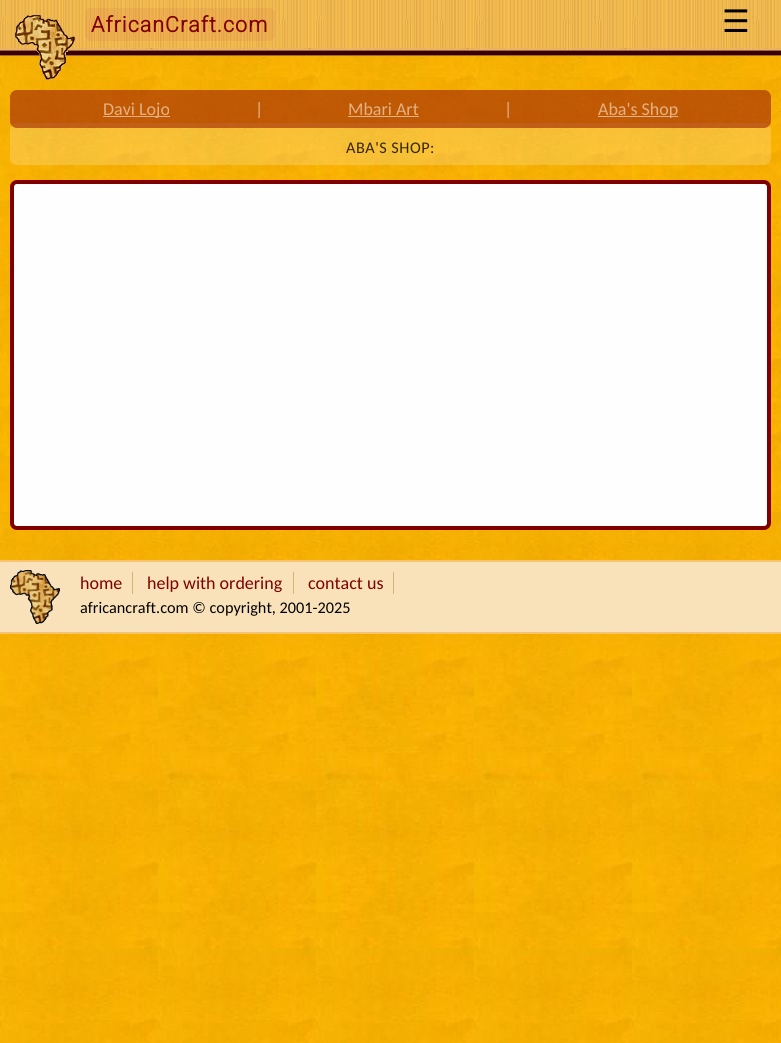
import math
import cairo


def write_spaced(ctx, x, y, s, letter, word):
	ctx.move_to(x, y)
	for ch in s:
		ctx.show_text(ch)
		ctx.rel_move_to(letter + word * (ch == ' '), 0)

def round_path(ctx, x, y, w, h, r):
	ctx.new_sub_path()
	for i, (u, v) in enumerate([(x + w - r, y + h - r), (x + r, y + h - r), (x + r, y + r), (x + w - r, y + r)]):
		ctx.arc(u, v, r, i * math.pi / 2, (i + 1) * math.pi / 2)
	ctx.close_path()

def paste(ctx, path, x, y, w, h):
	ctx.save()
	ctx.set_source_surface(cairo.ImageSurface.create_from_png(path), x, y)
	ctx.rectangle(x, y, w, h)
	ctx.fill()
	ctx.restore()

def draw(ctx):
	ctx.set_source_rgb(1, 1, 1)
	ctx.paint()
	paste(ctx, 'media/1.png', 0, 0, 781, 1043)
	paste(ctx, 'media/2.png', 15, 15, 60, 65)
	ctx.set_source_rgba(0.788, 0.298, 0.298, 0.1)
	round_path(ctx, 85, 8, 190, 33, 6)
	ctx.fill()
	ctx.select_font_face('Roboto', cairo.FONT_SLANT_NORMAL, cairo.FONT_WEIGHT_BOLD)
	ctx.set_font_size(21.5)
	ctx.set_source_rgb(0.502, 0, 0)
	write_spaced(ctx, 91, 32, 'AfricanCraft.com', 1, 0)
	ctx.select_font_face('DejaVu Sans')
	ctx.set_font_size(31)
	ctx.set_source_rgb(0, 0, 0)
	ctx.move_to(722, 32)
	ctx.show_text('☰')
	ctx.set_source_rgba(1, 1, 1, 0.2)
	round_path(ctx, 10, 123, 761, 42, 7)
	ctx.fill()
	ctx.set_source_rgba(0.616, 0.129, 0.02, 0.6)
	round_path(ctx, 10, 90, 761, 38, 7)
	ctx.fill()
	ctx.set_source_rgba(0.98, 0.922, 0.843, 0.6)
	ctx.rectangle(103, 116, 67, 1)
	ctx.fill()
	ctx.select_font_face('Carlito')
	ctx.set_font_size(18)
	ctx.set_source_rgb(0.89, 0.694, 0.514)
	for x, y, s in [
		(103, 115, 'Davi Lojo'),
		(255, 115, '|'),
		(348, 115, 'Mbari Art'),
	]:
		ctx.move_to(x, y)
		ctx.show_text(s)
	ctx.set_source_rgba(0.98, 0.922, 0.843, 0.6)
	ctx.rectangle(348, 116, 71, 1)
	ctx.fill()
	ctx.set_source_rgb(0.89, 0.694, 0.514)
	ctx.move_to(504, 115)
	ctx.show_text('|')
	ctx.set_source_rgba(0.98, 0.922, 0.843, 0.6)
	ctx.rectangle(598, 116, 80, 1)
	ctx.fill()
	ctx.set_source_rgb(0.89, 0.694, 0.514)
	ctx.move_to(598, 115)
	ctx.show_text('Aba\'s Shop')
	ctx.set_font_size(16.25)
	ctx.set_source_rgb(0.212, 0.149, 0.039)
	write_spaced(ctx, 346, 153, 'ABA\'S SHOP:', 0.5, 0)
	ctx.set_source_rgb(1, 0.996, 1)
	round_path(ctx, 12, 182, 757, 346, 5)
	ctx.fill_preserve()
	ctx.set_source_rgb(0.502, 0, 0)
	ctx.set_line_width(4)
	ctx.stroke()
	ctx.set_source_rgb(0.976, 0.886, 0.725)
	ctx.rectangle(0, 562, 781, 70)
	ctx.fill()
	ctx.set_source_rgb(0.961, 0.765, 0.451)
	ctx.rectangle(0, 560, 781, 2)
	ctx.rectangle(0, 632, 781, 2)
	ctx.fill()
	paste(ctx, 'media/3.png', 10, 570, 50, 54)
	ctx.set_font_size(18)
	ctx.set_source_rgb(0.502, 0, 0)
	ctx.move_to(80, 589)
	ctx.show_text('home')
	ctx.set_source_rgb(0.847, 0.694, 0.455)
	ctx.rectangle(132, 572, 1, 22)
	ctx.fill()
	ctx.set_source_rgb(0.502, 0, 0)
	ctx.move_to(147, 589)
	ctx.show_text('help with ordering')
	ctx.set_source_rgb(0.847, 0.694, 0.455)
	ctx.rectangle(293, 572, 1, 22)
	ctx.fill()
	ctx.set_source_rgb(0.502, 0, 0)
	ctx.move_to(308, 589)
	ctx.show_text('contact us')
	ctx.set_source_rgb(0.847, 0.694, 0.455)
	ctx.rectangle(393, 572, 1, 22)
	ctx.fill()
	ctx.set_font_size(16.25)
	ctx.set_source_rgb(0, 0, 0)
	ctx.move_to(80, 613)
	ctx.show_text('africancraft.com © copyright, 2001-2025')


surface = cairo.ImageSurface(cairo.FORMAT_RGB24, 781, 1043)
ctx = cairo.Context(surface)
options = cairo.FontOptions()
options.set_hint_metrics(cairo.HINT_METRICS_OFF)
options.set_hint_style(cairo.HINT_STYLE_NONE)
ctx.set_font_options(options)
ctx.set_miter_limit(4)
draw(ctx)
surface.write_to_png('image.png')
